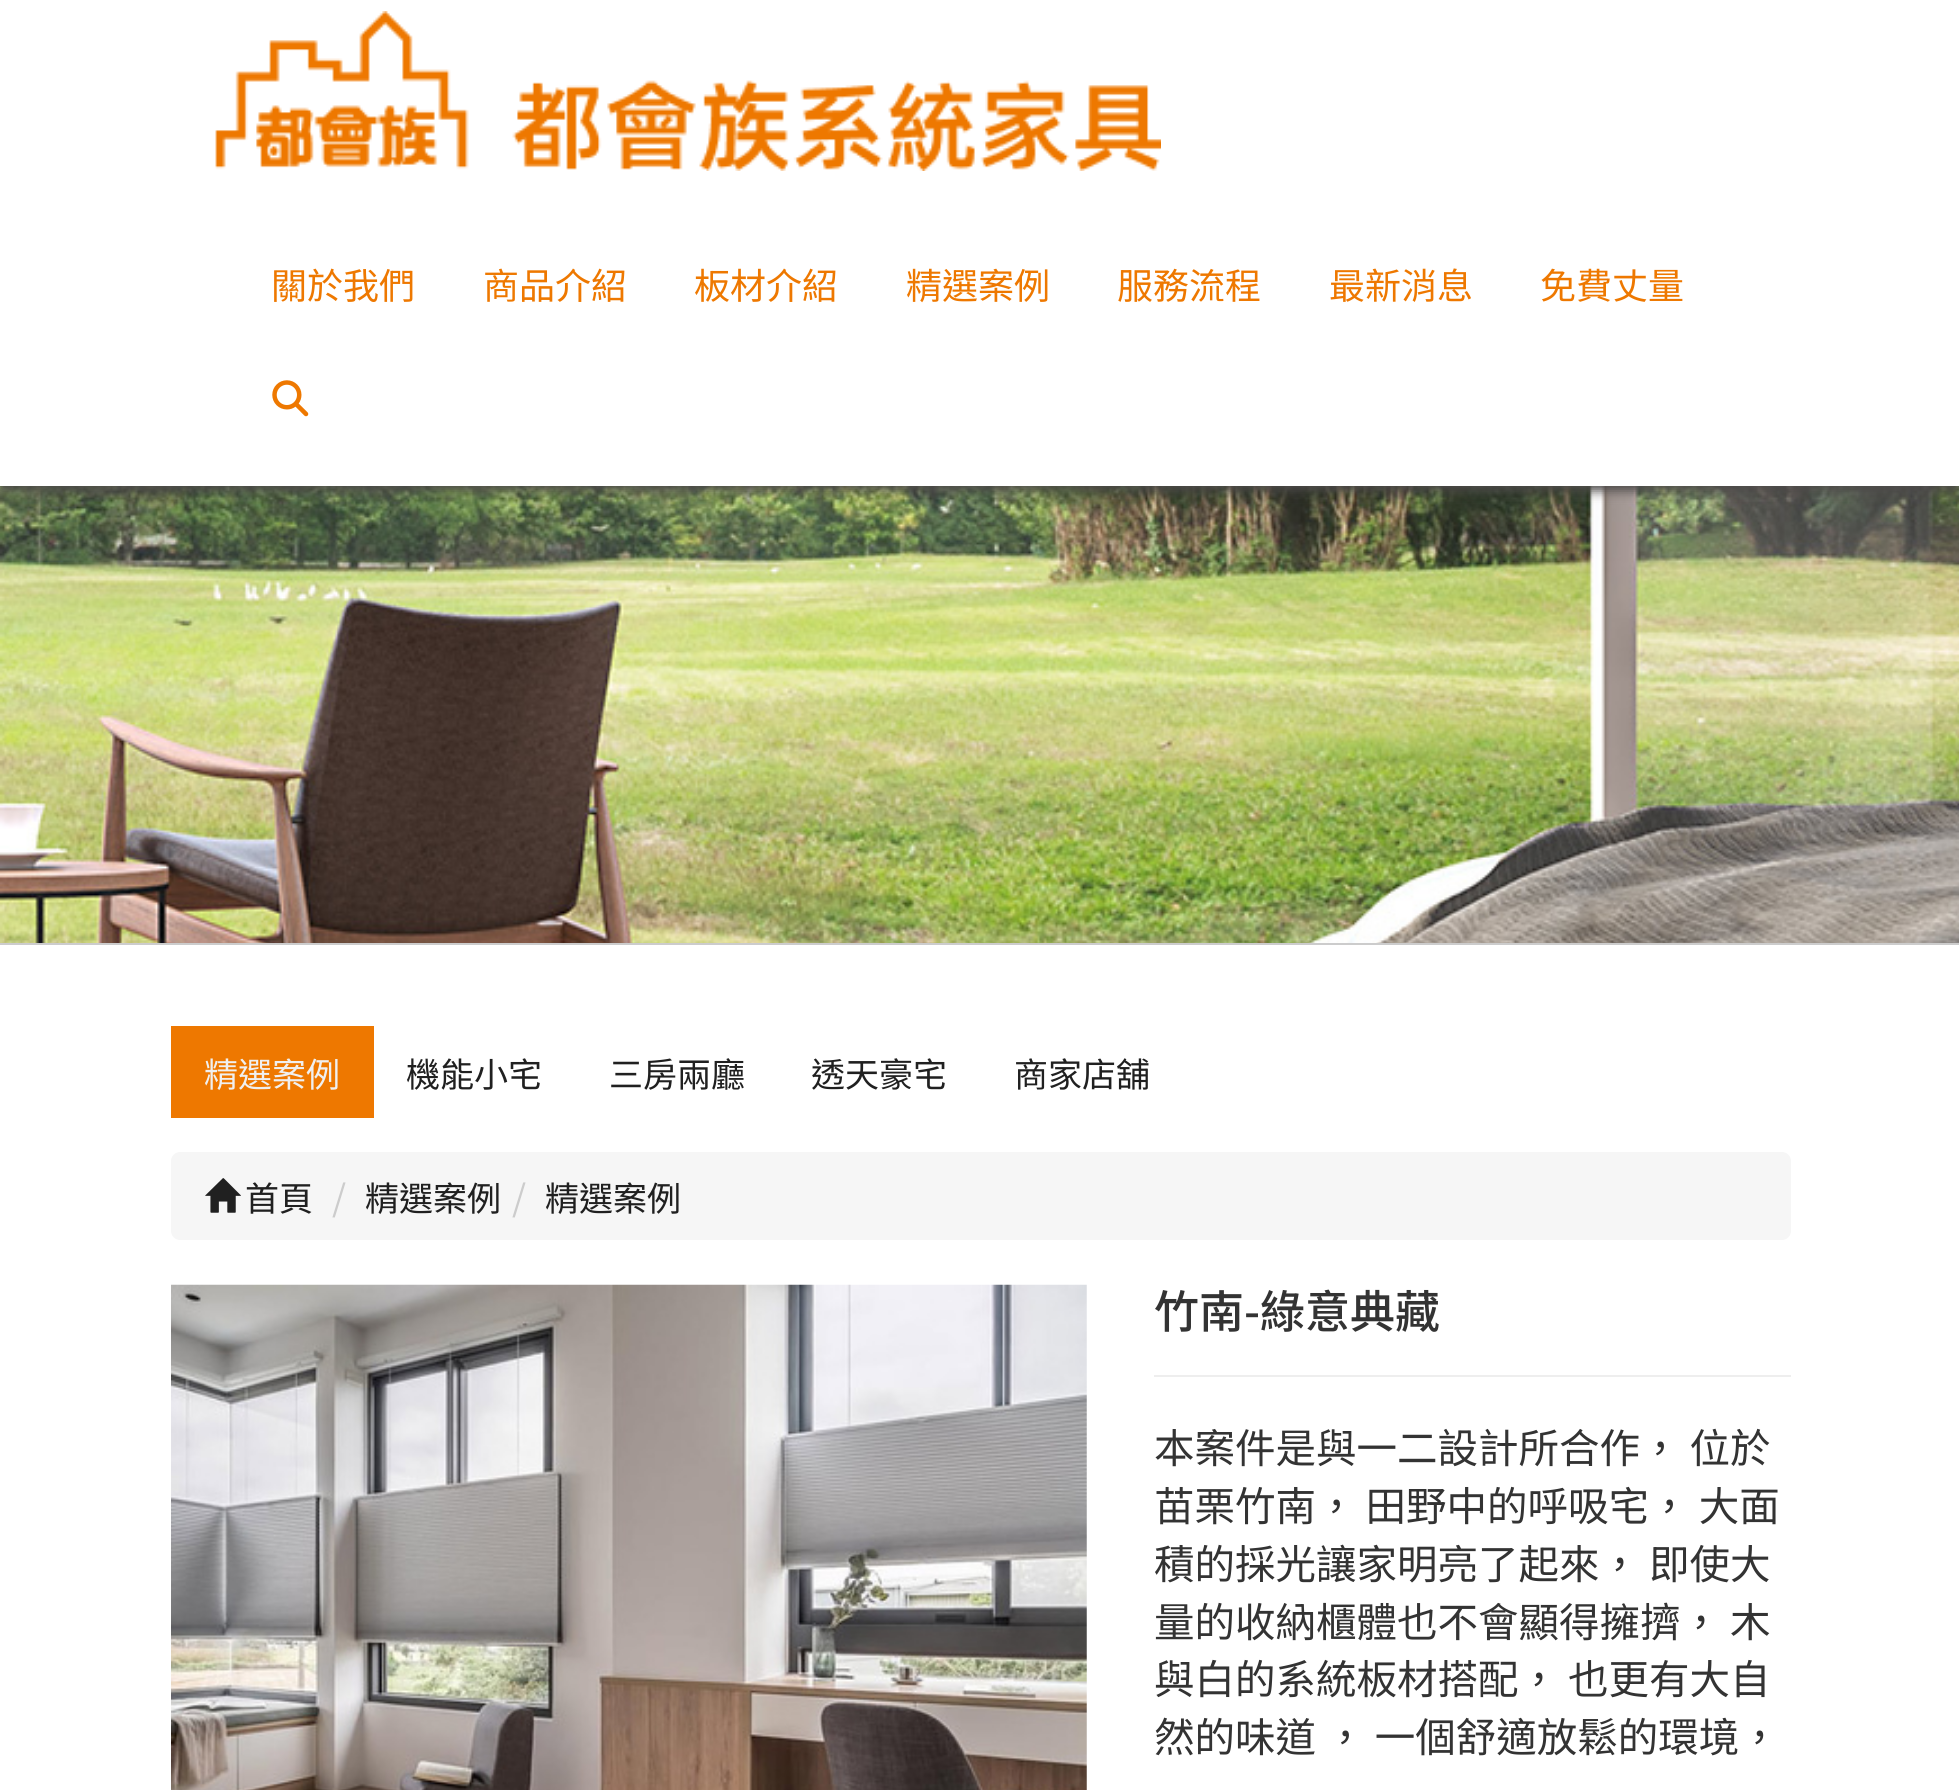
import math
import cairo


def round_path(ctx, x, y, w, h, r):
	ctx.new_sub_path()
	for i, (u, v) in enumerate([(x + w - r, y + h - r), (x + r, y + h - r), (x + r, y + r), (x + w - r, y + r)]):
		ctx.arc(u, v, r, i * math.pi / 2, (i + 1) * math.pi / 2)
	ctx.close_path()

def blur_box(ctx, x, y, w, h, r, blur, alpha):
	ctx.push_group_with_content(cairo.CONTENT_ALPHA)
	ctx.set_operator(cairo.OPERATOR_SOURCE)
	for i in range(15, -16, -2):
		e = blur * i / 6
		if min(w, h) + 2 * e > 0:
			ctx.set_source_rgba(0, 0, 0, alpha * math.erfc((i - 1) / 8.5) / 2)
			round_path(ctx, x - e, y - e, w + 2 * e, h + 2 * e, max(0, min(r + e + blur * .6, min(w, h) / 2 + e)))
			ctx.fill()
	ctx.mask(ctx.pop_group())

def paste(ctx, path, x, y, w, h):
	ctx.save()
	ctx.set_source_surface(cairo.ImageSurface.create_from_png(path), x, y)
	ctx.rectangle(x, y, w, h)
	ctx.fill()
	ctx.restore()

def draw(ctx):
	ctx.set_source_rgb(1, 1, 1)
	ctx.paint()
	paste(ctx, 'media/3.png', 0, 486, 1959, 457)
	ctx.set_source_rgb(0.298, 0.286, 0.282)
	blur_box(ctx, 0, 5, 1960, 486, 0, 5.5, 1)
	ctx.set_source_rgb(1, 1, 1)
	ctx.rectangle(0, 0, 1959, 486)
	ctx.fill()
	paste(ctx, 'media/1.png', 215, 11, 946, 160)
	ctx.select_font_face('Noto Sans TC')
	ctx.set_font_size(36)
	ctx.set_source_rgb(0.933, 0.471, 0)
	for x, y, s in [
		(271, 299, '關於我們'),
		(483, 299, '商品介紹'),
		(694, 299, '板材介紹'),
		(906, 299, '精選案例'),
		(1117, 299, '服務流程'),
		(1329, 299, '最新消息'),
		(1540, 299, '免費丈量'),
	]:
		ctx.move_to(x, y)
		ctx.show_text(s)
	paste(ctx, 'media/2.png', 272, 380, 37, 37)
	ctx.set_source_rgb(0.8, 0.8, 0.8)
	ctx.rectangle(0, 943, 1959, 2)
	ctx.fill()
	ctx.set_source_rgb(0.933, 0.471, 0)
	ctx.rectangle(171, 1026, 203, 92)
	ctx.fill()
	ctx.set_font_size(34)
	ctx.set_source_rgb(0.941, 0.941, 0.941)
	ctx.move_to(204, 1087)
	ctx.show_text('精選案例')
	ctx.set_source_rgb(0.125, 0.125, 0.125)
	for x, y, s in [
		(406, 1087, '機能小宅'),
		(609, 1087, '三房兩廳'),
		(811, 1087, '透天豪宅'),
		(1014, 1087, '商家店舖'),
	]:
		ctx.move_to(x, y)
		ctx.show_text(s)
	ctx.set_source_rgb(0.961, 0.961, 0.961)
	round_path(ctx, 171, 1152, 1620, 88, 9)
	ctx.fill()
	paste(ctx, 'media/4.png', 205, 1178, 36, 35)
	ctx.set_source_rgb(0.125, 0.125, 0.125)
	ctx.move_to(245, 1211)
	ctx.show_text('首頁')
	ctx.set_font_size(36)
	ctx.set_source_rgb(0.8, 0.8, 0.8)
	ctx.move_to(332, 1211)
	ctx.show_text('/')
	ctx.set_font_size(34)
	ctx.set_source_rgb(0.125, 0.125, 0.125)
	ctx.move_to(365, 1211)
	ctx.show_text('精選案例')
	ctx.set_font_size(36)
	ctx.set_source_rgb(0.8, 0.8, 0.8)
	ctx.move_to(512, 1211)
	ctx.show_text('/')
	ctx.set_font_size(34)
	ctx.set_source_rgb(0.125, 0.125, 0.125)
	ctx.move_to(545, 1211)
	ctx.show_text('精選案例')
	paste(ctx, 'media/5.png', 171, 1284, 916, 506)
	ctx.select_font_face('Noto Sans TC Medium')
	ctx.set_font_size(45)
	ctx.set_source_rgb(0.2, 0.2, 0.2)
	ctx.move_to(1154, 1328)
	ctx.show_text('竹南-綠意典藏')
	ctx.set_source_rgb(0.933, 0.933, 0.933)
	ctx.rectangle(1154, 1375, 637, 2)
	ctx.fill()
	ctx.select_font_face('Noto Sans TC')
	ctx.set_font_size(40.5)
	ctx.set_source_rgb(0.2, 0.2, 0.2)
	for x, y, s in [
		(1154, 1463, '本案件是與一二設計所合作， 位於'),
		(1154, 1521, '苗栗竹南， 田野中的呼吸宅， 大面'),
		(1154, 1579, '積的採光讓家明亮了起來， 即使大'),
		(1154, 1637, '量的收納櫃體也不會顯得擁擠， 木'),
		(1154, 1694, '與白的系統板材搭配， 也更有大自'),
		(1154, 1752, '然的味道 ， 一個舒適放鬆的環境，'),
	]:
		ctx.move_to(x, y)
		ctx.show_text(s)


surface = cairo.ImageSurface(cairo.FORMAT_RGB24, 1959, 1790)
ctx = cairo.Context(surface)
options = cairo.FontOptions()
options.set_hint_metrics(cairo.HINT_METRICS_OFF)
options.set_hint_style(cairo.HINT_STYLE_NONE)
ctx.set_font_options(options)
ctx.set_miter_limit(4)
draw(ctx)
surface.write_to_png('image.png')
